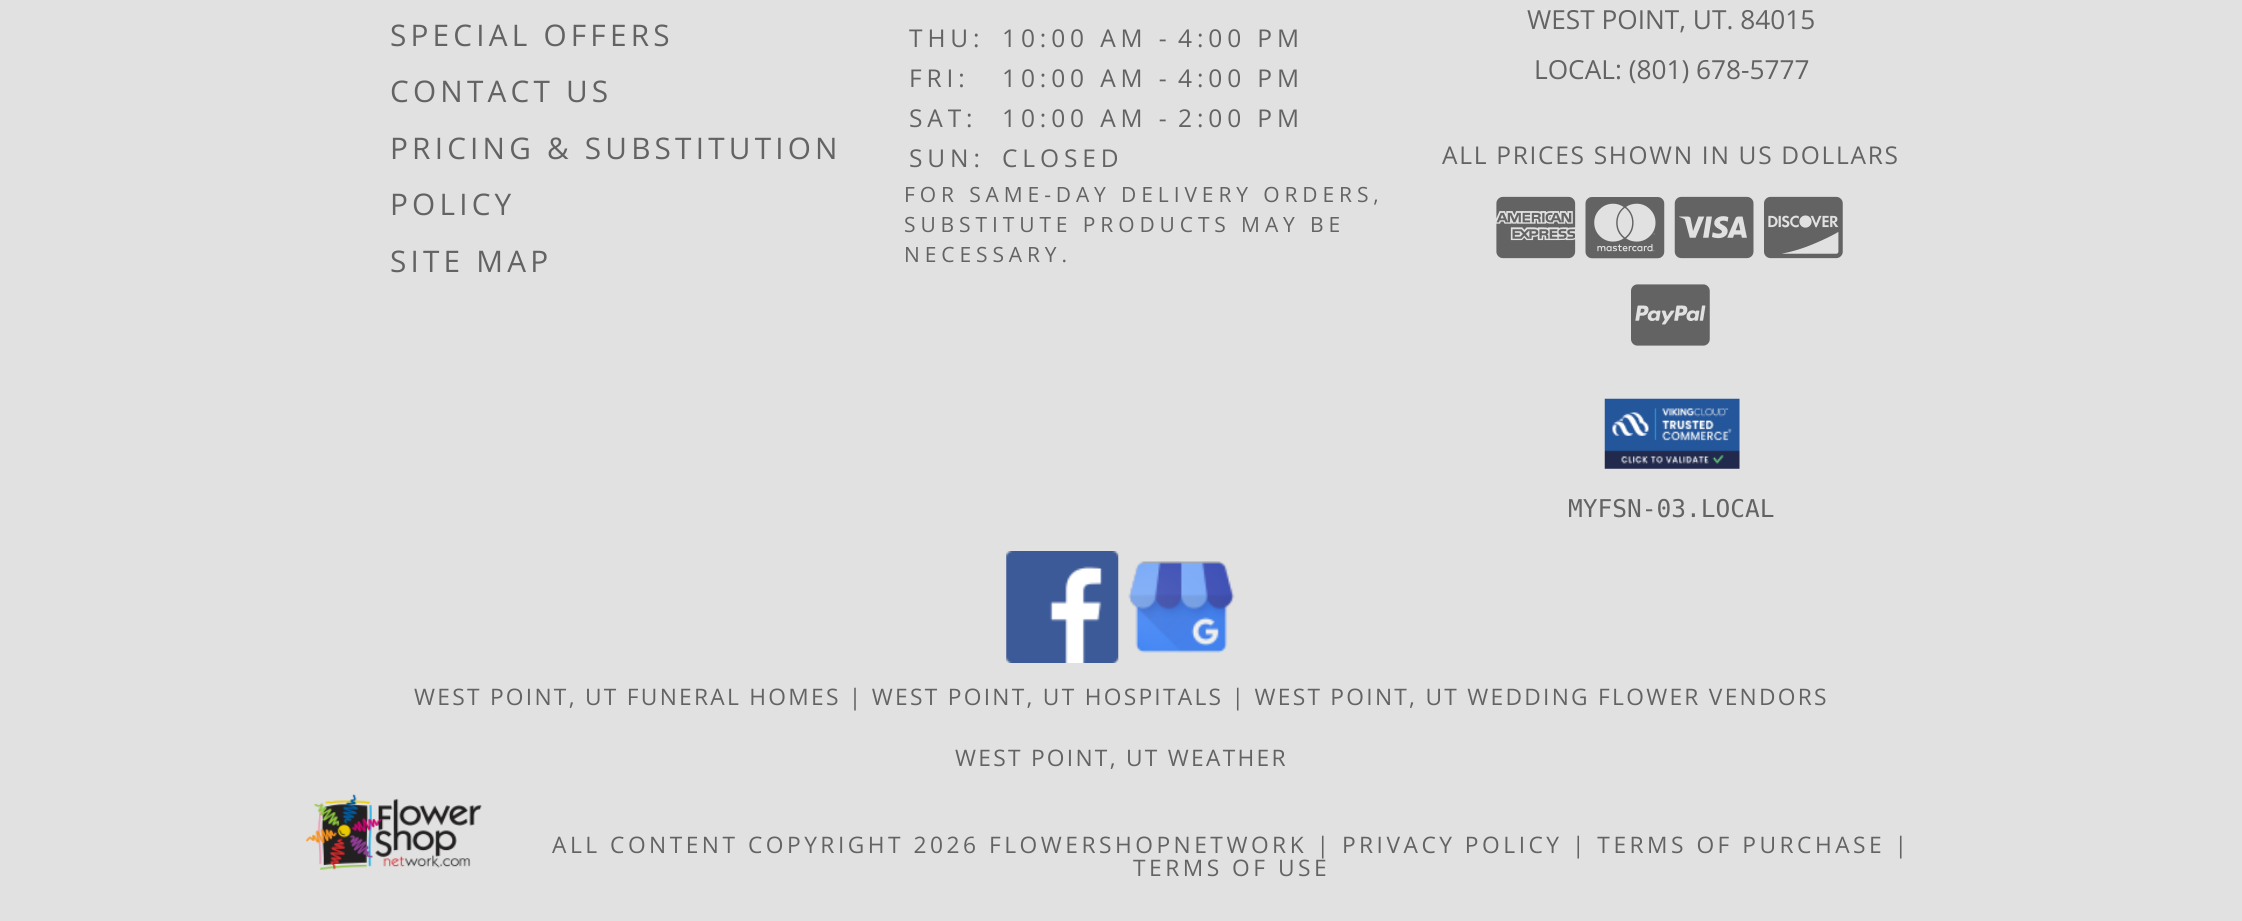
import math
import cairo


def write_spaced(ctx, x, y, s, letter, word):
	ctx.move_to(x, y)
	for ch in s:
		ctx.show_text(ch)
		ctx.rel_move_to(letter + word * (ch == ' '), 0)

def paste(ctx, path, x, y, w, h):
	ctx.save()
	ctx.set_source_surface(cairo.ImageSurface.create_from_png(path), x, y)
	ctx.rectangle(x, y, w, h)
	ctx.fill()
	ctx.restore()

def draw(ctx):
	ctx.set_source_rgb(0.882, 0.882, 0.882)
	ctx.paint()
	ctx.select_font_face('Open Sans')
	ctx.set_font_size(29.75)
	ctx.set_source_rgb(0.388, 0.388, 0.388)
	for x, y, s in [
		(390, 46, 'SPECIAL OFFERS'),
		(390, 102, 'CONTACT US'),
		(390, 159, 'PRICING & SUBSTITUTION'),
		(390, 215, 'POLICY'),
		(390, 272, 'SITE MAP'),
	]:
		write_spaced(ctx, x, y, s, 4.2, 0)
	ctx.set_font_size(24.5)
	for x, y, s in [
		(909, 47, 'THU:'),
		(1002, 47, '10:00 AM -'),
		(1178, 47, '4:00 PM'),
		(909, 87, 'FRI:'),
		(1002, 87, '10:00 AM -'),
		(1178, 87, '4:00 PM'),
		(909, 127, 'SAT:'),
		(1002, 127, '10:00 AM -'),
		(1178, 127, '2:00 PM'),
		(909, 167, 'SUN:'),
		(1002, 167, 'CLOSED'),
	]:
		write_spaced(ctx, x, y, s, 4.9, 0)
	ctx.set_font_size(21)
	for x, y, s in [
		(904, 202, 'FOR SAME-DAY DELIVERY ORDERS,'),
		(904, 232, 'SUBSTITUTE PRODUCTS MAY BE'),
		(904, 262, 'NECESSARY.'),
	]:
		write_spaced(ctx, x, y, s, 4.9, 0)
	ctx.set_font_size(26.25)
	ctx.move_to(1527, 29)
	ctx.show_text('WEST POINT, UT. 84015')
	ctx.move_to(1534, 79)
	ctx.show_text('LOCAL: (801) 678-5777')
	ctx.set_font_size(24.5)
	write_spaced(ctx, 1442, 164, 'ALL PRICES SHOWN IN US DOLLARS', 1.7, 0)
	paste(ctx, 'media/1.png', 1496, 196, 80, 63)
	paste(ctx, 'media/2.png', 1585, 197, 80, 62)
	paste(ctx, 'media/3.png', 1674, 196, 80, 63)
	paste(ctx, 'media/4.png', 1764, 196, 79, 63)
	paste(ctx, 'media/5.png', 1631, 284, 79, 62)
	paste(ctx, 'media/6.png', 1604, 398, 136, 71)
	ctx.select_font_face('DejaVu Sans Mono')
	ctx.move_to(1568, 517)
	ctx.show_text('MYFSN-03.LOCAL')
	paste(ctx, 'media/7.png', 1006, 551, 113, 112)
	paste(ctx, 'media/8.png', 1128, 561, 107, 92)
	ctx.select_font_face('Open Sans')
	ctx.set_font_size(22.75)
	write_spaced(ctx, 414, 705, 'WEST POINT, UT FUNERAL HOMES | WEST POINT, UT HOSPITALS | WEST POINT, UT WEDDING FLOWER VENDORS', 2.27, 0)
	write_spaced(ctx, 955, 766, 'WEST POINT, UT WEATHER', 2.27, 0)
	paste(ctx, 'media/9.png', 306, 794, 176, 76)
	write_spaced(ctx, 552, 853, 'ALL CONTENT COPYRIGHT 2026 FLOWERSHOPNETWORK | PRIVACY POLICY | TERMS OF PURCHASE |', 3.5, 0)
	write_spaced(ctx, 1133, 876, 'TERMS OF USE', 3.5, 0)


surface = cairo.ImageSurface(cairo.FORMAT_RGB24, 2242, 921)
ctx = cairo.Context(surface)
options = cairo.FontOptions()
options.set_hint_metrics(cairo.HINT_METRICS_OFF)
options.set_hint_style(cairo.HINT_STYLE_NONE)
ctx.set_font_options(options)
ctx.set_miter_limit(4)
draw(ctx)
surface.write_to_png('image.png')
